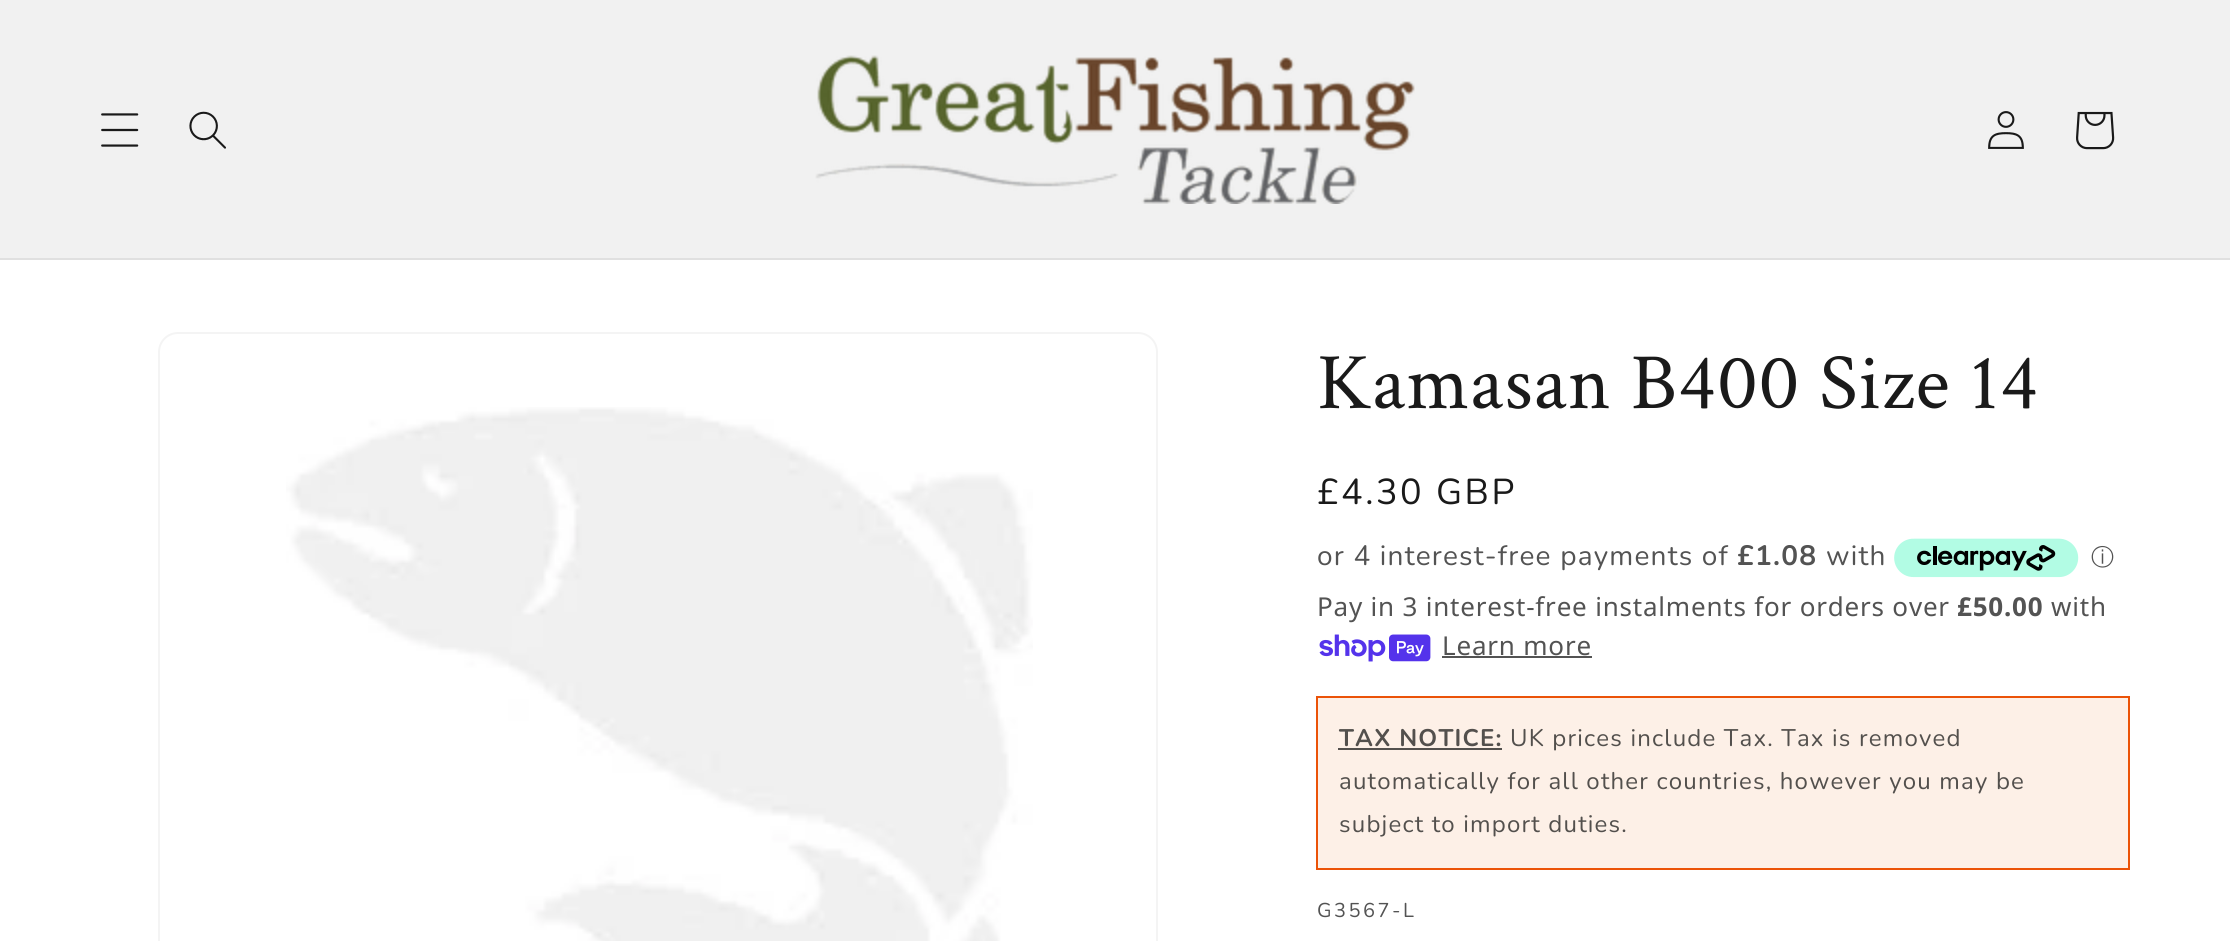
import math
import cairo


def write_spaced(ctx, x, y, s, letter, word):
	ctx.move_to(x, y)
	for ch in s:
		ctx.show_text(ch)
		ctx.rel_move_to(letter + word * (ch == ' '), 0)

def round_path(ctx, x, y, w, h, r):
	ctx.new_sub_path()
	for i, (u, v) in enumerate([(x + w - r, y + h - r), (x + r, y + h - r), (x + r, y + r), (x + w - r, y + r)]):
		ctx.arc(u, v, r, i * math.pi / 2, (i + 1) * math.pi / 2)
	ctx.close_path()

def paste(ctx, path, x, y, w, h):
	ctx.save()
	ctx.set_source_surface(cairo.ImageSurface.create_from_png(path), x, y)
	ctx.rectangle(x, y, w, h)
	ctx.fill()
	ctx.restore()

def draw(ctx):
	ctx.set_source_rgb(1, 1, 1)
	ctx.paint()
	ctx.set_source_rgb(0.945, 0.945, 0.945)
	ctx.rectangle(0, 0, 2230, 258)
	ctx.fill()
	ctx.set_source_rgb(0.878, 0.878, 0.878)
	ctx.rectangle(0, 258, 2230, 2)
	ctx.fill()
	paste(ctx, 'media/1.png', 101, 113, 38, 34)
	paste(ctx, 'media/2.png', 189, 111, 37, 38)
	paste(ctx, 'media/3.png', 815, 55, 600, 149)
	paste(ctx, 'media/4.png', 1988, 111, 36, 38)
	paste(ctx, 'media/5.png', 2076, 111, 39, 39)
	round_path(ctx, 159, 333, 998, 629, 19)
	ctx.set_source_rgb(0.957, 0.957, 0.957)
	ctx.stroke()
	paste(ctx, 'media/6.png', 286, 407, 747, 534)
	ctx.select_font_face('Crimson Text')
	ctx.set_font_size(80)
	ctx.set_source_rgb(0.102, 0.102, 0.102)
	write_spaced(ctx, 1317, 408, 'Kamasan B400 Size 14', 1.2, 0)
	ctx.select_font_face('Nunito')
	ctx.set_font_size(36)
	write_spaced(ctx, 1317, 504, '£4.30 GBP', 2.5, 0)
	ctx.set_font_size(28)
	ctx.set_source_rgb(0.325, 0.325, 0.325)
	write_spaced(ctx, 1317, 565, 'or 4 interest-free payments of', 1.2, 0)
	ctx.select_font_face('Nunito', cairo.FONT_SLANT_NORMAL, cairo.FONT_WEIGHT_BOLD)
	write_spaced(ctx, 1737, 565, '£1.08', 1.2, 0)
	ctx.select_font_face('Nunito')
	write_spaced(ctx, 1826, 565, 'with', 1.2, 0)
	paste(ctx, 'media/7.png', 1894, 538, 185, 40)
	ctx.select_font_face('WenQuanYi Zen Hei Medium')
	ctx.set_font_size(23)
	ctx.move_to(2091, 565)
	ctx.show_text('ⓘ')
	ctx.select_font_face('Noto Sans')
	ctx.set_font_size(26)
	write_spaced(ctx, 1317, 616, 'Pay in 3 interest-free instalments for orders over', 0.8, 0)
	ctx.select_font_face('Noto Sans', cairo.FONT_SLANT_NORMAL, cairo.FONT_WEIGHT_BOLD)
	write_spaced(ctx, 1957, 616, '£50.00', 0.8, 0)
	ctx.select_font_face('Noto Sans')
	write_spaced(ctx, 2051, 616, 'with', 0.8, 0)
	paste(ctx, 'media/8.png', 1319, 634, 112, 28)
	write_spaced(ctx, 1442, 655, 'Learn more', 0.8, 0)
	ctx.rectangle(1442, 656, 150, 2)
	ctx.fill()
	ctx.set_source_rgb(0.992, 0.941, 0.906)
	ctx.rectangle(1317, 697, 812, 172)
	ctx.fill_preserve()
	ctx.set_source_rgb(0.918, 0.325, 0.035)
	ctx.stroke()
	ctx.select_font_face('Nunito', cairo.FONT_SLANT_NORMAL, cairo.FONT_WEIGHT_BOLD)
	ctx.set_font_size(24)
	ctx.set_source_rgb(0.325, 0.314, 0.302)
	write_spaced(ctx, 1339, 746, 'TAX NOTICE:', 1.2, 0)
	ctx.rectangle(1338, 748, 164, 2)
	ctx.fill()
	ctx.select_font_face('Nunito')
	for x, y, s in [
		(1510, 746, 'UK prices include Tax. Tax is removed'),
		(1339, 789, 'automatically for all other countries, however you may be'),
		(1339, 832, 'subject to import duties.'),
	]:
		write_spaced(ctx, x, y, s, 1.2, 0)
	ctx.set_font_size(20)
	ctx.set_source_rgb(0.325, 0.325, 0.325)
	write_spaced(ctx, 1317, 917, 'G3567-L', 2.5, 0)


surface = cairo.ImageSurface(cairo.FORMAT_RGB24, 2230, 941)
ctx = cairo.Context(surface)
options = cairo.FontOptions()
options.set_hint_metrics(cairo.HINT_METRICS_OFF)
options.set_hint_style(cairo.HINT_STYLE_NONE)
ctx.set_font_options(options)
ctx.set_miter_limit(4)
draw(ctx)
surface.write_to_png('image.png')
